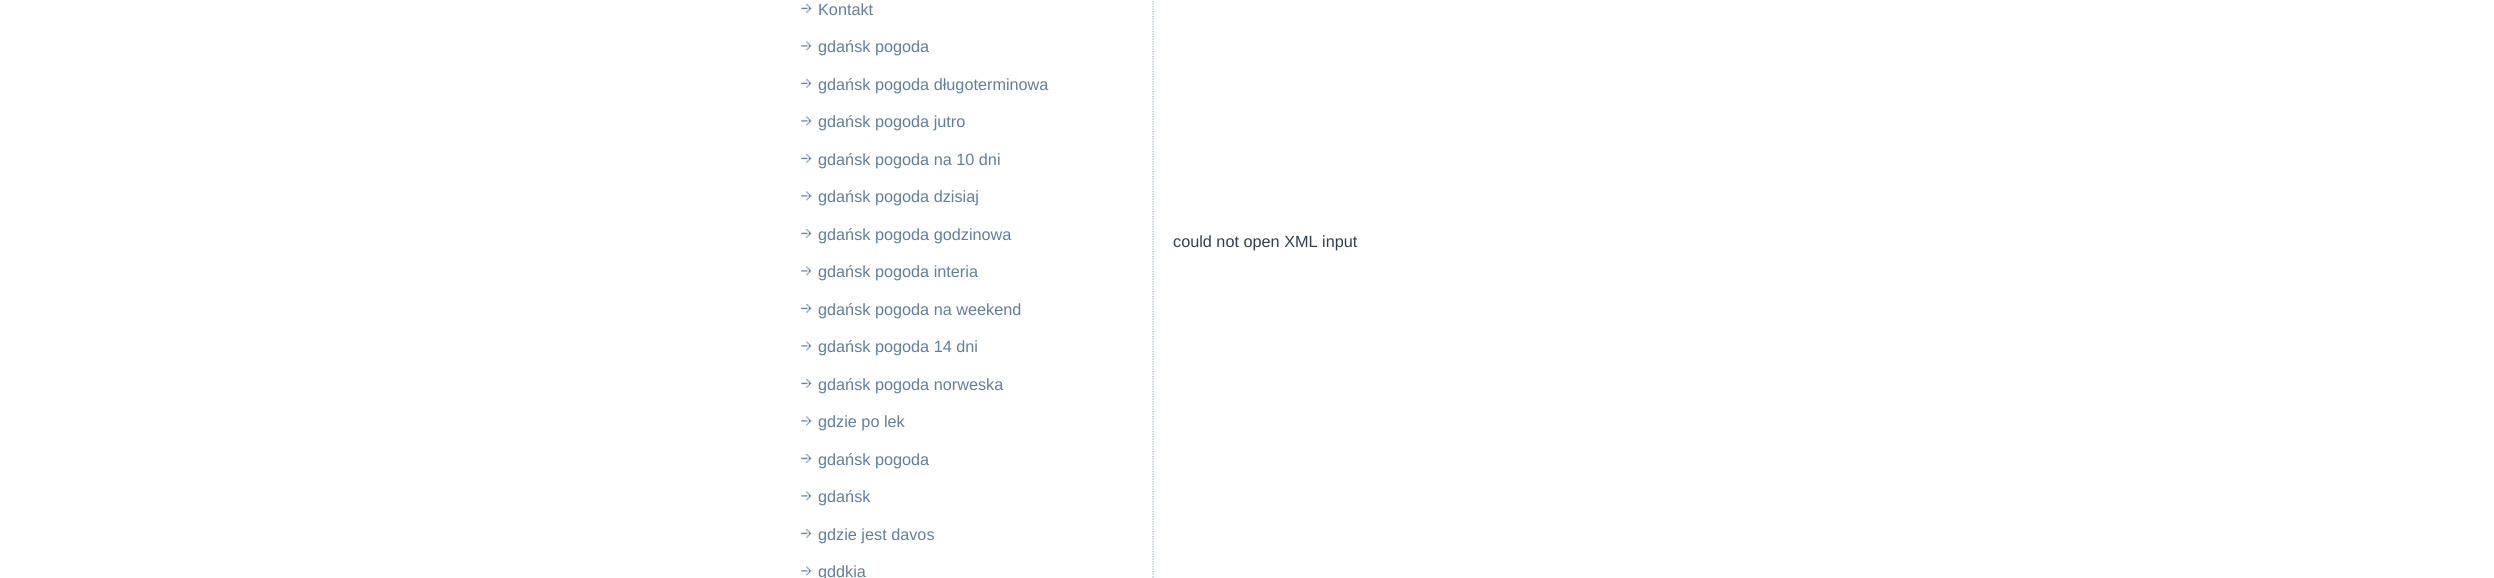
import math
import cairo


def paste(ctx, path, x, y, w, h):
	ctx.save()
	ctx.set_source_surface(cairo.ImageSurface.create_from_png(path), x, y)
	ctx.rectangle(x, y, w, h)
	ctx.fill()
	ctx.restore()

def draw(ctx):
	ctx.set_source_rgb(1, 1, 1)
	ctx.paint()
	ctx.new_path()
	ctx.move_to(1153, -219)
	ctx.line_to(1153, 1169)
	ctx.set_source_rgb(0.639, 0.706, 0.784)
	ctx.set_line_width(1.2)
	ctx.set_dash([1.25, 1.25])
	ctx.stroke()
	paste(ctx, 'media/1.png', 801, 4, 11, 9)
	ctx.select_font_face('Liberation Sans')
	ctx.set_font_size(16.25)
	ctx.set_source_rgb(0.376, 0.494, 0.624)
	ctx.move_to(818, 15)
	ctx.show_text('Kontakt')
	paste(ctx, 'media/2.png', 801, 41, 11, 10)
	ctx.move_to(818, 52)
	ctx.show_text('gdańsk pogoda')
	paste(ctx, 'media/1.png', 801, 79, 11, 9)
	ctx.move_to(818, 90)
	ctx.show_text('gdańsk pogoda długoterminowa')
	paste(ctx, 'media/2.png', 801, 116, 11, 10)
	ctx.move_to(818, 127)
	ctx.show_text('gdańsk pogoda jutro')
	paste(ctx, 'media/1.png', 801, 154, 11, 9)
	ctx.move_to(818, 165)
	ctx.show_text('gdańsk pogoda na 10 dni')
	paste(ctx, 'media/2.png', 801, 191, 11, 10)
	ctx.move_to(818, 202)
	ctx.show_text('gdańsk pogoda dzisiaj')
	paste(ctx, 'media/1.png', 801, 229, 11, 9)
	ctx.move_to(818, 240)
	ctx.show_text('gdańsk pogoda godzinowa')
	paste(ctx, 'media/2.png', 801, 266, 11, 10)
	ctx.move_to(818, 277)
	ctx.show_text('gdańsk pogoda interia')
	paste(ctx, 'media/1.png', 801, 304, 11, 9)
	ctx.move_to(818, 315)
	ctx.show_text('gdańsk pogoda na weekend')
	paste(ctx, 'media/2.png', 801, 341, 11, 10)
	ctx.move_to(818, 352)
	ctx.show_text('gdańsk pogoda 14 dni')
	paste(ctx, 'media/1.png', 801, 379, 11, 9)
	ctx.move_to(818, 390)
	ctx.show_text('gdańsk pogoda norweska')
	paste(ctx, 'media/2.png', 801, 416, 11, 10)
	ctx.move_to(818, 427)
	ctx.show_text('gdzie po lek')
	paste(ctx, 'media/1.png', 801, 454, 11, 9)
	ctx.move_to(818, 465)
	ctx.show_text('gdańsk pogoda')
	paste(ctx, 'media/2.png', 801, 491, 11, 10)
	ctx.move_to(818, 502)
	ctx.show_text('gdańsk')
	paste(ctx, 'media/1.png', 801, 529, 11, 9)
	ctx.move_to(818, 540)
	ctx.show_text('gdzie jest davos')
	paste(ctx, 'media/2.png', 801, 566, 11, 10)
	ctx.move_to(818, 577)
	ctx.show_text('gddkia')
	ctx.set_source_rgb(0.188, 0.247, 0.314)
	ctx.move_to(1173, 247)
	ctx.show_text('could not open XML input')


surface = cairo.ImageSurface(cairo.FORMAT_RGB24, 2494, 578)
ctx = cairo.Context(surface)
options = cairo.FontOptions()
options.set_hint_metrics(cairo.HINT_METRICS_OFF)
options.set_hint_style(cairo.HINT_STYLE_NONE)
ctx.set_font_options(options)
ctx.set_miter_limit(4)
draw(ctx)
surface.write_to_png('image.png')
